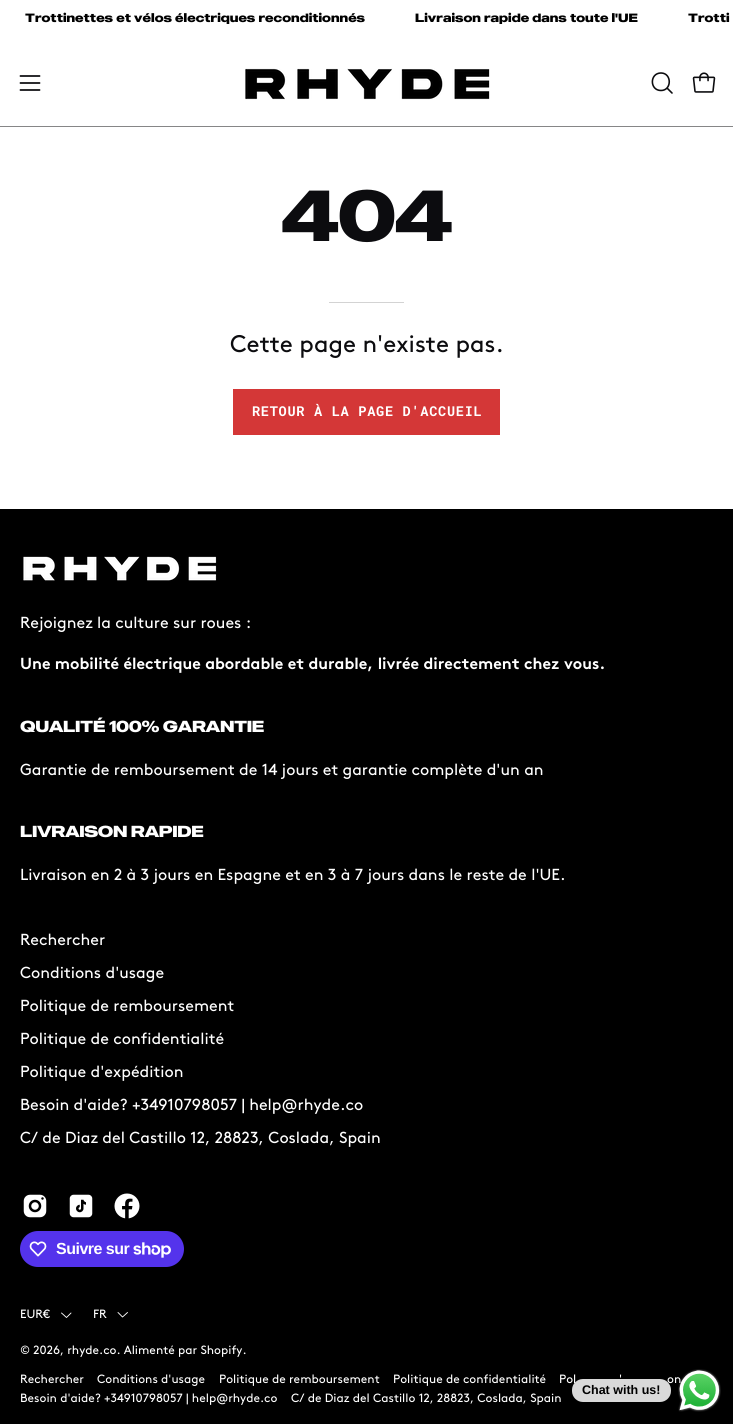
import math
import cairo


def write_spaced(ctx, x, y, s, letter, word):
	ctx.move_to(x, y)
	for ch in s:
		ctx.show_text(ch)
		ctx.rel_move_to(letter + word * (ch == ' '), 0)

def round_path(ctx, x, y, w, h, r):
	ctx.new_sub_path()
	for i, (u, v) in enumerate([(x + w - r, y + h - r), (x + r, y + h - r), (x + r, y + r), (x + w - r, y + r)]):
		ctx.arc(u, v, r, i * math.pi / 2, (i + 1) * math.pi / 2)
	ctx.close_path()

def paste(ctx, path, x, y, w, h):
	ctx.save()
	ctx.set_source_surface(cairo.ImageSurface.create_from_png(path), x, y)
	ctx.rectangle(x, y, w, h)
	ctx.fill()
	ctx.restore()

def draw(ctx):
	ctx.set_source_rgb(1, 1, 1)
	ctx.paint()
	ctx.select_font_face('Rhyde', cairo.FONT_SLANT_ITALIC, cairo.FONT_WEIGHT_BOLD)
	ctx.set_font_size(12)
	ctx.set_source_rgb(0, 0, 0)
	for x, y, s in [
		(25, 22, 'Trottinettes et vélos électriques reconditionnés'),
		(415, 22, 'Livraison rapide dans toute l\'UE'),
		(688, 22, 'Trotti'),
	]:
		ctx.move_to(x, y)
		ctx.show_text(s)
	ctx.new_path()
	ctx.move_to(20.5, 83)
	ctx.line_to(39.5, 83)
	ctx.move_to(20.5, 76)
	ctx.line_to(39.5, 76)
	ctx.move_to(20.5, 90)
	ctx.line_to(39.5, 90)
	ctx.set_source_rgb(0.047, 0.047, 0.059)
	ctx.set_line_width(1.8)
	ctx.set_line_cap(cairo.LINE_CAP_ROUND)
	ctx.set_line_join(cairo.LINE_JOIN_ROUND)
	ctx.stroke()
	paste(ctx, 'media/1.png', 245, 68, 245, 32)
	ctx.new_path()
	ctx.move_to(661, 90.5)
	ctx.curve_to(672, 90.5, 672, 73, 661, 73)
	ctx.curve_to(649.5, 73, 649.5, 90.5, 661, 90.5)
	ctx.close_path()
	ctx.move_to(667, 88)
	ctx.line_to(672, 93)
	ctx.set_line_width(1.6)
	ctx.stroke()
	paste(ctx, 'media/2.png', 692, 72, 24, 21)
	ctx.set_source_rgb(0.525, 0.525, 0.529)
	ctx.rectangle(0, 126, 733, 1)
	ctx.fill()
	ctx.set_font_size(72)
	ctx.set_source_rgb(0.047, 0.047, 0.059)
	write_spaced(ctx, 281, 241, '404', -2, 0)
	ctx.set_source_rgb(0.827, 0.827, 0.827)
	ctx.rectangle(329, 302, 75, 1)
	ctx.fill()
	ctx.select_font_face('Rhyde', cairo.FONT_SLANT_ITALIC)
	ctx.set_font_size(24)
	ctx.set_source_rgb(0.047, 0.047, 0.059)
	ctx.move_to(230, 352)
	ctx.show_text('Cette page n\'existe pas.')
	ctx.set_source_rgb(0.831, 0.216, 0.216)
	ctx.rectangle(233, 389, 267, 46)
	ctx.fill()
	ctx.select_font_face('Roboto Mono', cairo.FONT_SLANT_NORMAL, cairo.FONT_WEIGHT_BOLD)
	ctx.set_font_size(13.6)
	ctx.set_source_rgb(1, 1, 1)
	write_spaced(ctx, 252, 416, 'RETOUR À LA PAGE D\'ACCUEIL', 0.7, 0)
	ctx.set_source_rgb(0, 0, 0)
	ctx.rectangle(0, 509, 733, 915)
	ctx.fill()
	paste(ctx, 'media/3.png', 23, 556, 194, 25)
	ctx.select_font_face('Rhyde', cairo.FONT_SLANT_ITALIC)
	ctx.set_font_size(16)
	ctx.set_source_rgb(1, 1, 1)
	ctx.move_to(20, 628)
	ctx.show_text('Rejoignez la culture sur roues :')
	ctx.select_font_face('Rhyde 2', cairo.FONT_SLANT_ITALIC, cairo.FONT_WEIGHT_BOLD)
	ctx.move_to(20, 669)
	ctx.show_text('Une mobilité électrique abordable et durable, livrée directement chez vous.')
	ctx.select_font_face('Rhyde', cairo.FONT_SLANT_ITALIC, cairo.FONT_WEIGHT_BOLD)
	write_spaced(ctx, 20, 732, 'QUALITÉ 100% GARANTIE', -0.4, 0)
	ctx.select_font_face('Rhyde', cairo.FONT_SLANT_ITALIC)
	ctx.move_to(20, 775)
	ctx.show_text('Garantie de remboursement de 14 jours et garantie complète d\'un an')
	ctx.select_font_face('Rhyde', cairo.FONT_SLANT_ITALIC, cairo.FONT_WEIGHT_BOLD)
	write_spaced(ctx, 20, 837, 'LIVRAISON RAPIDE', -0.4, 0)
	ctx.select_font_face('Rhyde', cairo.FONT_SLANT_ITALIC)
	for x, y, s in [
		(20, 880, 'Livraison en 2 à 3 jours en Espagne et en 3 à 7 jours dans le reste de l\'UE.'),
		(20, 945, 'Rechercher'),
		(20, 978, 'Conditions d\'usage'),
		(20, 1011, 'Politique de remboursement'),
		(20, 1044, 'Politique de confidentialité'),
		(20, 1077, 'Politique d\'expédition'),
		(20, 1110, 'Besoin d\'aide? +34910798057 | help@rhyde.co'),
		(20, 1143, 'C/ de Diaz del Castillo 12, 28823, Coslada, Spain'),
	]:
		ctx.move_to(x, y)
		ctx.show_text(s)
	paste(ctx, 'media/4.png', 23, 1194, 24, 24)
	paste(ctx, 'media/5.png', 69, 1194, 24, 24)
	paste(ctx, 'media/6.png', 114, 1193, 26, 26)
	ctx.set_source_rgb(0.329, 0.2, 0.922)
	round_path(ctx, 20, 1231, 164, 36, 18)
	ctx.fill()
	paste(ctx, 'media/7.png', 29, 1241, 18, 16)
	ctx.select_font_face('Liberation Sans', cairo.FONT_SLANT_NORMAL, cairo.FONT_WEIGHT_BOLD)
	ctx.set_source_rgb(1, 1, 1)
	write_spaced(ctx, 56, 1254, 'Suivre sur', -0.5, 0)
	paste(ctx, 'media/8.png', 133, 1242, 38, 16)
	ctx.select_font_face('Rhyde', cairo.FONT_SLANT_ITALIC)
	ctx.set_font_size(12)
	ctx.move_to(20, 1318)
	ctx.show_text('EUR€')
	ctx.new_path()
	ctx.move_to(71, 1313)
	ctx.line_to(66.5, 1317.5)
	ctx.line_to(61.5, 1313)
	ctx.set_line_width(0.9)
	ctx.stroke()
	ctx.move_to(93, 1318)
	ctx.show_text('FR')
	ctx.new_path()
	ctx.move_to(127.5, 1312.5)
	ctx.line_to(122.5, 1317)
	ctx.line_to(118, 1312.5)
	ctx.stroke()
	for x, y, s in [
		(20, 1354, '© 2026, rhyde.co. Alimenté par Shopify.'),
		(20, 1383, 'Rechercher'),
		(97, 1383, 'Conditions d\'usage'),
		(219, 1383, 'Politique de remboursement'),
		(393, 1383, 'Politique de confidentialité'),
		(559, 1383, 'Pol'),
		(619, 1383, '\''),
		(667, 1383, 'on'),
		(20, 1402, 'Besoin d\'aide? +34910798057 | help@rhyde.co'),
		(291, 1402, 'C/ de Diaz del Castillo 12, 28823, Coslada, Spain'),
	]:
		ctx.move_to(x, y)
		ctx.show_text(s)
	ctx.set_source_rgba(1, 1, 1, 0.85)
	round_path(ctx, 572, 1379, 99, 23, 11)
	ctx.fill()
	ctx.select_font_face('Liberation Sans', cairo.FONT_SLANT_NORMAL, cairo.FONT_WEIGHT_BOLD)
	ctx.set_font_size(12.5)
	ctx.set_source_rgb(0, 0, 0)
	ctx.move_to(582, 1394)
	ctx.show_text('Chat with us!')
	paste(ctx, 'media/9.png', 678, 1369, 43, 43)


surface = cairo.ImageSurface(cairo.FORMAT_RGB24, 733, 1424)
ctx = cairo.Context(surface)
options = cairo.FontOptions()
options.set_hint_metrics(cairo.HINT_METRICS_OFF)
options.set_hint_style(cairo.HINT_STYLE_NONE)
ctx.set_font_options(options)
ctx.set_miter_limit(4)
draw(ctx)
surface.write_to_png('image.png')
